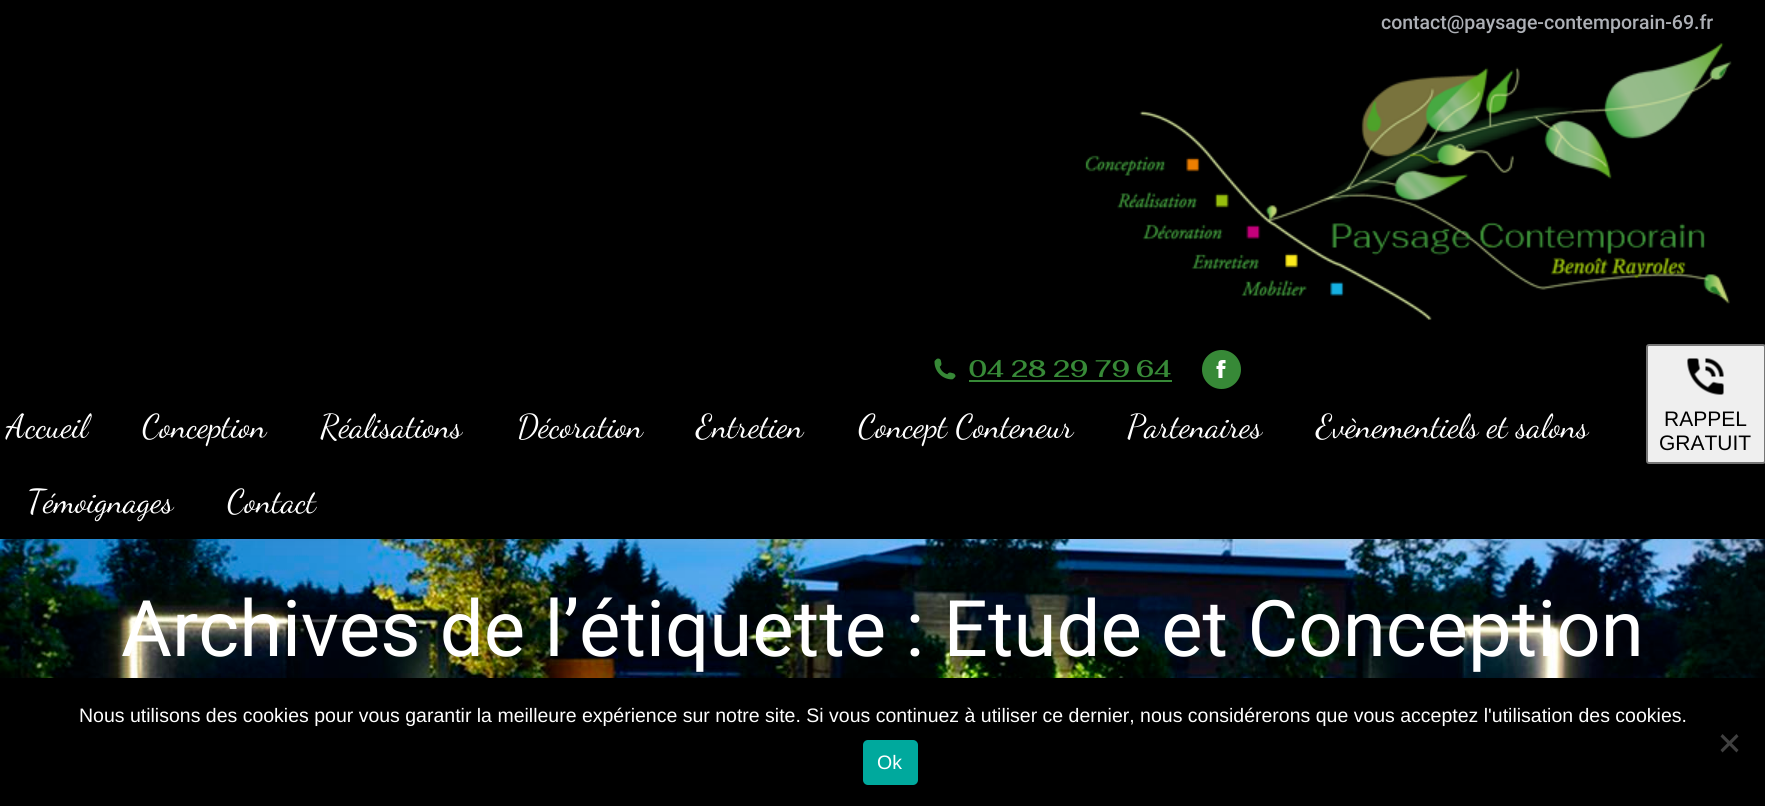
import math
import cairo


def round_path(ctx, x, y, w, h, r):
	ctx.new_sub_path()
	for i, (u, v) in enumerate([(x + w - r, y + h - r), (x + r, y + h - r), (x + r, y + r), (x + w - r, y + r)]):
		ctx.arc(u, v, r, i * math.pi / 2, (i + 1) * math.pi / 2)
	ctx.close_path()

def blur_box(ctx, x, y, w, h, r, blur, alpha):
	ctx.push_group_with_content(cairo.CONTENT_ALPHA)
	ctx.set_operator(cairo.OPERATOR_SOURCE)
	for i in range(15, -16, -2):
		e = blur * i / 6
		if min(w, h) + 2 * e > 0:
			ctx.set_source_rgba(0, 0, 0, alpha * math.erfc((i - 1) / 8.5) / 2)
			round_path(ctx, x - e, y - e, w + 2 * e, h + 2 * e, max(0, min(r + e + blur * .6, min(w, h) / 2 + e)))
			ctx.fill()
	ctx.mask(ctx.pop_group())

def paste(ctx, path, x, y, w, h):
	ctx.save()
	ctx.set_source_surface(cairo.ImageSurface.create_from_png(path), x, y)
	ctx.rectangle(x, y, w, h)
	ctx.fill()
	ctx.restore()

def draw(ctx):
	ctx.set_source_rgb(1, 1, 1)
	ctx.paint()
	paste(ctx, 'media/4.png', 0, 539, 1765, 139)
	ctx.set_source_rgb(0, 0, 0)
	blur_box(ctx, -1, -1, 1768, 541, 0, 11, 0.07)
	ctx.set_source_rgb(0, 0, 0)
	ctx.rectangle(0, 0, 1765, 539)
	ctx.fill()
	ctx.select_font_face('Roboto Medium')
	ctx.set_font_size(19.5)
	ctx.set_source_rgb(0.678, 0.69, 0.714)
	ctx.move_to(1381, 29)
	ctx.show_text('contact@paysage-contemporain-69.fr')
	paste(ctx, 'media/1.png', 1085, 43, 647, 277)
	paste(ctx, 'media/2.png', 934, 358, 22, 22)
	ctx.select_font_face('Fahkwang SemiBold')
	ctx.set_font_size(24)
	ctx.set_source_rgb(0.216, 0.537, 0.216)
	ctx.move_to(969, 377)
	ctx.show_text('04 28 29 79 64')
	ctx.rectangle(969, 380, 203, 2)
	ctx.fill()
	ctx.arc(1221.5, 369.5, 19.5, 0, 2 * math.pi)
	ctx.fill()
	paste(ctx, 'media/3.png', 1216, 360, 10, 18)
	ctx.select_font_face('Dancing Script')
	ctx.set_font_size(33)
	ctx.set_source_rgb(1, 1, 1)
	for x, y, s in [
		(6, 437, 'Accueil'),
		(142, 437, 'Conception'),
		(320, 437, 'Réalisations'),
		(517, 437, 'Décoration'),
		(696, 437, 'Entretien'),
		(858, 437, 'Concept Conteneur'),
		(1127, 437, 'Partenaires'),
		(1316, 437, 'Evènementiels et salons'),
		(27, 512, 'Témoignages'),
		(227, 512, 'Contact'),
	]:
		ctx.move_to(x, y)
		ctx.show_text(s)
	ctx.select_font_face('Roboto')
	ctx.set_font_size(78)
	ctx.move_to(121, 656)
	ctx.show_text('Archives de l’étiquette : Etude et Conception')
	ctx.set_source_rgb(0.937, 0.937, 0.937)
	round_path(ctx, 1647, 345, 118, 118, 2)
	ctx.fill_preserve()
	ctx.set_source_rgb(0.463, 0.463, 0.463)
	ctx.stroke()
	paste(ctx, 'media/5.png', 1687, 358, 37, 37)
	ctx.select_font_face('Liberation Sans')
	ctx.set_font_size(21)
	ctx.set_source_rgb(0, 0, 0)
	ctx.move_to(1664, 426)
	ctx.show_text('RAPPEL')
	ctx.move_to(1659, 450)
	ctx.show_text('GRATUIT')
	ctx.rectangle(0, 678, 1765, 128)
	ctx.fill()
	ctx.set_font_size(19.5)
	ctx.set_source_rgb(1, 1, 1)
	ctx.move_to(79, 722)
	ctx.show_text('Nous utilisons des cookies pour vous garantir la meilleure expérience sur notre site. Si vous continuez à utiliser ce dernier, nous considérerons que vous acceptez l\'utilisation des cookies.')
	ctx.set_source_rgb(0.251, 0.251, 0.251)
	ctx.new_path()
	ctx.move_to(1736.5, 734)
	ctx.line_to(1738.5, 736.5)
	ctx.line_to(1722.5, 752.5)
	ctx.line_to(1720.5, 750)
	ctx.close_path()
	ctx.fill()
	ctx.new_path()
	ctx.move_to(1720.5, 736.5)
	ctx.line_to(1722.5, 734)
	ctx.line_to(1738.5, 750)
	ctx.line_to(1736.5, 752.5)
	ctx.close_path()
	ctx.fill()
	ctx.set_source_rgb(0, 0.663, 0.616)
	round_path(ctx, 863, 740, 55, 45, 5)
	ctx.fill()
	ctx.set_source_rgb(1, 1, 1)
	ctx.move_to(877, 769)
	ctx.show_text('Ok')


surface = cairo.ImageSurface(cairo.FORMAT_RGB24, 1765, 806)
ctx = cairo.Context(surface)
options = cairo.FontOptions()
options.set_hint_metrics(cairo.HINT_METRICS_OFF)
options.set_hint_style(cairo.HINT_STYLE_NONE)
ctx.set_font_options(options)
ctx.set_miter_limit(4)
draw(ctx)
surface.write_to_png('image.png')
